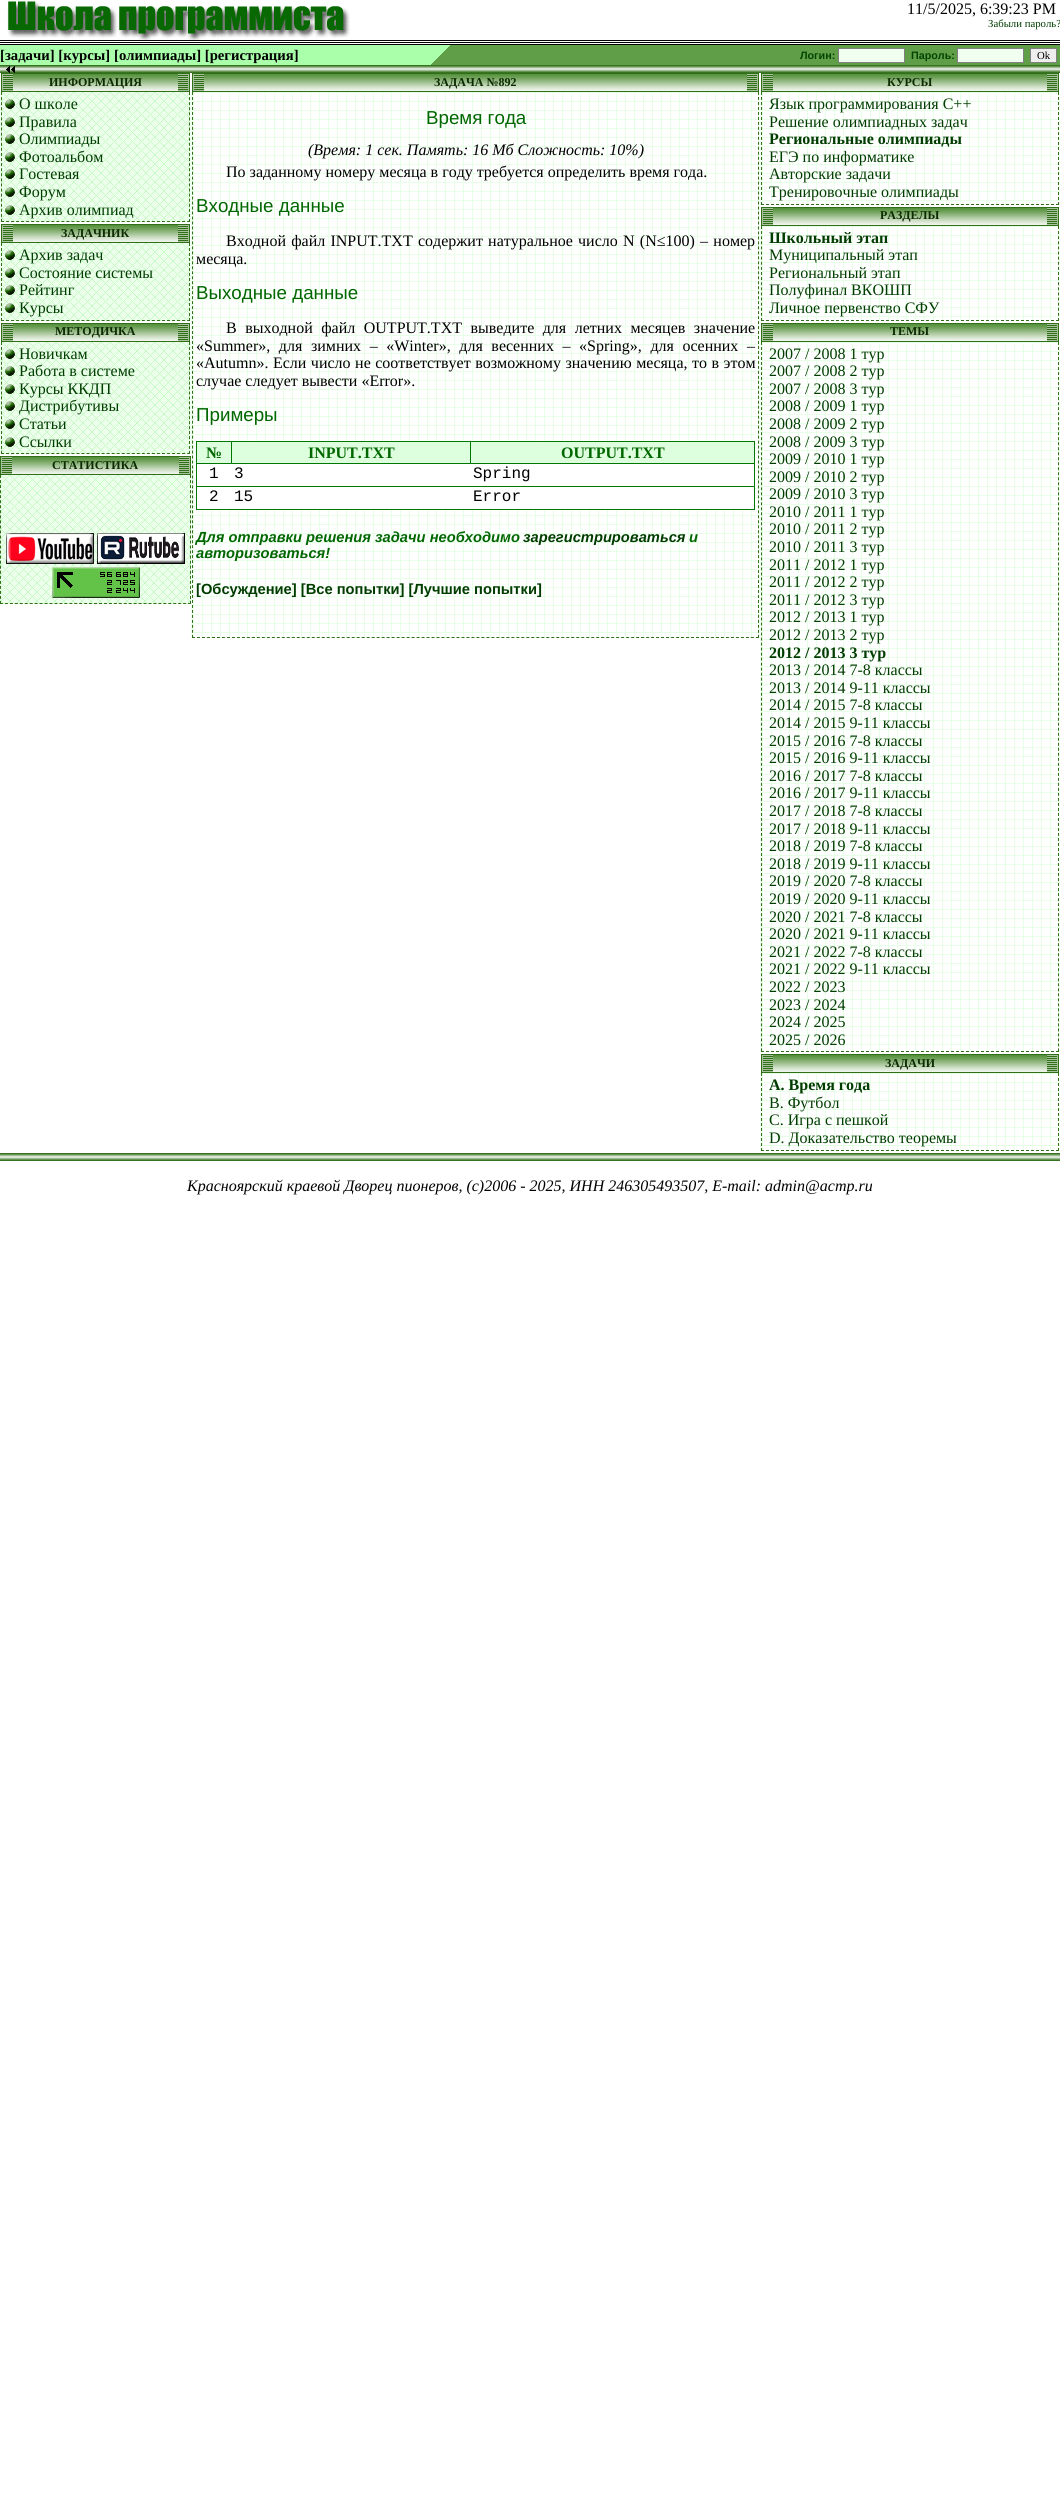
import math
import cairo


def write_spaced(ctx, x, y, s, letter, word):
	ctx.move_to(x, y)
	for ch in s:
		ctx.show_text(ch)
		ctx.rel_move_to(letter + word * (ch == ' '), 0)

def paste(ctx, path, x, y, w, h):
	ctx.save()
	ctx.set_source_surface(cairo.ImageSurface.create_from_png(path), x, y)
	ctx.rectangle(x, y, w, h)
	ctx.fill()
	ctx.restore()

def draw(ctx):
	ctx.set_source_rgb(1, 1, 1)
	ctx.paint()
	paste(ctx, 'media/1.png', 7, 1, 343, 39)
	ctx.select_font_face('Liberation Serif')
	ctx.set_font_size(16)
	ctx.set_source_rgb(0, 0, 0)
	ctx.move_to(907, 14)
	ctx.show_text('11/5/2025, 6:39:23 PM')
	ctx.set_font_size(10.75)
	ctx.set_source_rgb(0, 0.235, 0)
	ctx.move_to(988, 27)
	ctx.show_text('Забыли пароль?')
	paste(ctx, 'media/2.png', 0, 40, 1060, 5)
	ctx.set_source_rgb(0.667, 1, 0.667)
	ctx.rectangle(0, 45, 430, 20)
	ctx.fill()
	ctx.select_font_face('Liberation Serif', cairo.FONT_SLANT_NORMAL, cairo.FONT_WEIGHT_BOLD)
	ctx.set_font_size(14.7)
	ctx.set_source_rgb(0, 0, 0)
	ctx.move_to(0, 60)
	ctx.show_text('[задачи] [курсы]')
	ctx.move_to(114, 60)
	ctx.show_text('[олимпиады] [регистрация]')
	ctx.set_source_rgb(0.376, 0.62, 0.282)
	ctx.rectangle(431, 46, 19, 19)
	ctx.fill()
	paste(ctx, 'media/3.png', 430, 45, 20, 20)
	ctx.rectangle(450, 45, 610, 20)
	ctx.fill()
	ctx.select_font_face('Liberation Sans', cairo.FONT_SLANT_NORMAL, cairo.FONT_WEIGHT_BOLD)
	ctx.set_font_size(10.75)
	ctx.set_source_rgb(0, 0.267, 0)
	ctx.move_to(800, 59)
	ctx.show_text('Логин:')
	ctx.set_source_rgb(0.941, 1, 0.941)
	ctx.rectangle(838.5, 48.5, 66, 14)
	ctx.fill_preserve()
	ctx.set_source_rgb(0.502, 0.502, 0.502)
	ctx.set_line_width(1)
	ctx.stroke()
	ctx.set_source_rgb(0, 0.267, 0)
	ctx.move_to(911, 59)
	ctx.show_text('Пароль:')
	ctx.set_source_rgb(0.941, 1, 0.941)
	ctx.rectangle(957.5, 48.5, 66, 14)
	ctx.fill_preserve()
	ctx.set_source_rgb(0.502, 0.502, 0.502)
	ctx.stroke()
	ctx.set_source_rgb(0.933, 0.933, 0.933)
	ctx.rectangle(1030.5, 48.5, 26, 14)
	ctx.fill_preserve()
	ctx.set_source_rgb(0.502, 0.502, 0.502)
	ctx.stroke()
	ctx.select_font_face('Liberation Serif')
	ctx.set_source_rgb(0, 0, 0)
	ctx.move_to(1037, 59)
	ctx.show_text('Ok')
	paste(ctx, 'media/4.png', 0, 65, 1060, 8)
	paste(ctx, 'media/5.png', 6, 66, 9, 7)
	paste(ctx, 'media/6.png', 1, 73, 12, 19)
	paste(ctx, 'media/7.png', 13, 73, 165, 19)
	ctx.select_font_face('Liberation Serif', cairo.FONT_SLANT_NORMAL, cairo.FONT_WEIGHT_BOLD)
	ctx.set_font_size(12)
	ctx.set_source_rgb(0.051, 0.169, 0.004)
	ctx.move_to(49, 86)
	ctx.show_text('ИНФОРМАЦИЯ')
	paste(ctx, 'media/8.png', 178, 73, 12, 19)
	ctx.set_source_rgb(0.941, 1, 0.941)
	ctx.rectangle(0, 92, 191, 130)
	ctx.fill()
	paste(ctx, 'media/9.png', 1, 92, 189, 130)
	ctx.new_path()
	ctx.move_to(189.5, 92)
	ctx.line_to(189.5, 222)
	ctx.set_source_rgb(0.188, 0.431, 0.094)
	ctx.set_dash([3, 2.08])
	ctx.stroke()
	ctx.new_path()
	ctx.move_to(1, 221.5)
	ctx.line_to(190, 221.5)
	ctx.set_dash([3, 2.03])
	ctx.stroke()
	ctx.new_path()
	ctx.move_to(1.5, 92)
	ctx.line_to(1.5, 222)
	ctx.set_dash([3, 2.08])
	ctx.stroke()
	paste(ctx, 'media/10.png', 5, 99, 10, 10)
	ctx.select_font_face('Liberation Serif')
	ctx.set_font_size(16)
	ctx.set_source_rgb(0, 0.235, 0)
	ctx.move_to(19, 109)
	ctx.show_text('О школе')
	paste(ctx, 'media/10.png', 5, 117, 10, 10)
	ctx.move_to(19, 127)
	ctx.show_text('Правила')
	paste(ctx, 'media/11.png', 5, 134, 10, 10)
	ctx.move_to(19, 144)
	ctx.show_text('Олимпиады')
	paste(ctx, 'media/11.png', 5, 152, 10, 10)
	ctx.move_to(19, 162)
	ctx.show_text('Фотоальбом')
	paste(ctx, 'media/12.png', 5, 169, 10, 10)
	ctx.move_to(19, 179)
	ctx.show_text('Гостевая')
	paste(ctx, 'media/12.png', 5, 187, 10, 10)
	ctx.move_to(19, 197)
	ctx.show_text('Форум')
	paste(ctx, 'media/12.png', 5, 205, 10, 10)
	ctx.move_to(19, 215)
	ctx.show_text('Архив олимпиад')
	paste(ctx, 'media/6.png', 1, 224, 12, 19)
	paste(ctx, 'media/7.png', 13, 224, 165, 19)
	ctx.select_font_face('Liberation Serif', cairo.FONT_SLANT_NORMAL, cairo.FONT_WEIGHT_BOLD)
	ctx.set_font_size(12)
	ctx.set_source_rgb(0.051, 0.169, 0.004)
	ctx.move_to(61, 237)
	ctx.show_text('ЗАДАЧНИК')
	paste(ctx, 'media/8.png', 178, 224, 12, 19)
	ctx.set_source_rgb(0.941, 1, 0.941)
	ctx.rectangle(0, 243, 191, 78)
	ctx.fill()
	paste(ctx, 'media/13.png', 1, 243, 189, 78)
	ctx.new_path()
	ctx.move_to(189.5, 243)
	ctx.line_to(189.5, 321)
	ctx.set_source_rgb(0.188, 0.431, 0.094)
	ctx.set_dash([3, 2])
	ctx.stroke()
	ctx.new_path()
	ctx.move_to(1, 320.5)
	ctx.line_to(190, 320.5)
	ctx.set_dash([3, 2.03])
	ctx.stroke()
	ctx.new_path()
	ctx.move_to(1.5, 243)
	ctx.line_to(1.5, 321)
	ctx.set_dash([3, 2])
	ctx.stroke()
	paste(ctx, 'media/10.png', 5, 250, 10, 10)
	ctx.select_font_face('Liberation Serif')
	ctx.set_font_size(16)
	ctx.set_source_rgb(0, 0.235, 0)
	ctx.move_to(19, 260)
	ctx.show_text('Архив задач')
	paste(ctx, 'media/10.png', 5, 268, 10, 10)
	ctx.move_to(19, 278)
	ctx.show_text('Состояние системы')
	paste(ctx, 'media/11.png', 5, 285, 10, 10)
	ctx.move_to(19, 295)
	ctx.show_text('Рейтинг')
	paste(ctx, 'media/11.png', 5, 303, 10, 10)
	ctx.move_to(19, 313)
	ctx.show_text('Курсы')
	paste(ctx, 'media/6.png', 1, 323, 12, 19)
	paste(ctx, 'media/7.png', 13, 323, 165, 19)
	ctx.select_font_face('Liberation Serif', cairo.FONT_SLANT_NORMAL, cairo.FONT_WEIGHT_BOLD)
	ctx.set_font_size(12)
	ctx.set_source_rgb(0.051, 0.169, 0.004)
	ctx.move_to(55, 335)
	ctx.show_text('МЕТОДИЧКА')
	paste(ctx, 'media/8.png', 178, 323, 12, 19)
	ctx.set_source_rgb(0.941, 1, 0.941)
	ctx.rectangle(0, 342, 191, 112)
	ctx.fill()
	paste(ctx, 'media/14.png', 1, 342, 189, 112)
	ctx.new_path()
	ctx.move_to(189.5, 342)
	ctx.line_to(189.5, 454)
	ctx.set_source_rgb(0.188, 0.431, 0.094)
	ctx.set_dash([3, 1.95])
	ctx.stroke()
	ctx.new_path()
	ctx.move_to(1, 453.5)
	ctx.line_to(190, 453.5)
	ctx.set_dash([3, 2.03])
	ctx.stroke()
	ctx.new_path()
	ctx.move_to(1.5, 342)
	ctx.line_to(1.5, 454)
	ctx.set_dash([3, 1.95])
	ctx.stroke()
	paste(ctx, 'media/10.png', 5, 349, 10, 10)
	ctx.select_font_face('Liberation Serif')
	ctx.set_font_size(16)
	ctx.set_source_rgb(0, 0.235, 0)
	ctx.move_to(19, 359)
	ctx.show_text('Новичкам')
	paste(ctx, 'media/11.png', 5, 366, 10, 10)
	ctx.move_to(19, 376)
	ctx.show_text('Работа в системе')
	paste(ctx, 'media/11.png', 5, 384, 10, 10)
	ctx.move_to(19, 394)
	ctx.show_text('Курсы ККДП')
	paste(ctx, 'media/12.png', 5, 401, 10, 10)
	ctx.move_to(19, 411)
	ctx.show_text('Дистрибутивы')
	paste(ctx, 'media/12.png', 5, 419, 10, 10)
	ctx.move_to(19, 429)
	ctx.show_text('Статьи')
	paste(ctx, 'media/12.png', 5, 437, 10, 10)
	ctx.move_to(19, 447)
	ctx.show_text('Ссылки')
	paste(ctx, 'media/6.png', 0, 456, 12, 19)
	paste(ctx, 'media/15.png', 12, 456, 167, 19)
	ctx.select_font_face('Liberation Serif', cairo.FONT_SLANT_NORMAL, cairo.FONT_WEIGHT_BOLD)
	ctx.set_font_size(12)
	ctx.set_source_rgb(0.051, 0.169, 0.004)
	ctx.move_to(52, 469)
	ctx.show_text('СТАТИСТИКА')
	paste(ctx, 'media/8.png', 179, 456, 12, 19)
	paste(ctx, 'media/16.png', 0, 475, 191, 129)
	ctx.new_path()
	ctx.move_to(190.5, 475)
	ctx.line_to(190.5, 604)
	ctx.set_source_rgb(0.188, 0.431, 0.094)
	ctx.set_dash([3, 2.04])
	ctx.stroke()
	ctx.new_path()
	ctx.move_to(0, 603.5)
	ctx.line_to(191, 603.5)
	ctx.set_dash([3, 1.95])
	ctx.stroke()
	ctx.new_path()
	ctx.move_to(0.5, 475)
	ctx.line_to(0.5, 604)
	ctx.set_dash([3, 2.04])
	ctx.stroke()
	paste(ctx, 'media/17.png', 6, 533, 88, 31)
	paste(ctx, 'media/18.png', 97, 533, 88, 31)
	paste(ctx, 'media/19.png', 52, 567, 88, 31)
	paste(ctx, 'media/6.png', 192, 73, 12, 19)
	paste(ctx, 'media/20.png', 204, 73, 543, 19)
	ctx.set_source_rgb(0.051, 0.169, 0.004)
	ctx.move_to(434, 86)
	ctx.show_text('ЗАДАЧА №892')
	paste(ctx, 'media/8.png', 747, 73, 12, 19)
	ctx.set_source_rgb(0.941, 1, 0.941)
	ctx.rectangle(191, 92, 569, 546)
	ctx.fill()
	paste(ctx, 'media/21.png', 192, 92, 567, 546)
	ctx.new_path()
	ctx.move_to(758.5, 92)
	ctx.line_to(758.5, 638)
	ctx.set_source_rgb(0.188, 0.431, 0.094)
	ctx.set_dash([3, 1.98])
	ctx.stroke()
	ctx.new_path()
	ctx.move_to(192, 637.5)
	ctx.line_to(759, 637.5)
	ctx.set_dash([3, 1.99])
	ctx.stroke()
	ctx.new_path()
	ctx.move_to(192.5, 92)
	ctx.line_to(192.5, 638)
	ctx.set_dash([3, 1.98])
	ctx.stroke()
	ctx.select_font_face('Liberation Sans')
	ctx.set_font_size(18.75)
	ctx.set_source_rgb(0, 0.4, 0)
	ctx.move_to(426, 124)
	ctx.show_text('Время года')
	ctx.select_font_face('Liberation Serif', cairo.FONT_SLANT_ITALIC)
	ctx.set_font_size(16)
	ctx.set_source_rgb(0, 0, 0)
	ctx.move_to(308, 155)
	ctx.show_text('(Время: 1 сек. Память: 16 Мб Сложность: 10%)')
	ctx.select_font_face('Liberation Serif')
	ctx.move_to(226, 177)
	ctx.show_text('По заданному номеру месяца в году требуется определить время года.')
	ctx.select_font_face('Liberation Sans')
	ctx.set_font_size(18.75)
	ctx.set_source_rgb(0, 0.4, 0)
	ctx.move_to(196, 212)
	ctx.show_text('Входные данные')
	ctx.select_font_face('Liberation Serif')
	ctx.set_font_size(16)
	ctx.set_source_rgb(0, 0, 0)
	write_spaced(ctx, 226, 246, 'Входной файл INPUT.TXT содержит натуральное число N (N≤100) – номер', 0, 1.25)
	ctx.move_to(196, 264)
	ctx.show_text('месяца.')
	ctx.select_font_face('Liberation Sans')
	ctx.set_font_size(18.75)
	ctx.set_source_rgb(0, 0.4, 0)
	ctx.move_to(196, 299)
	ctx.show_text('Выходные данные')
	ctx.select_font_face('Liberation Serif')
	ctx.set_font_size(16)
	ctx.set_source_rgb(0, 0, 0)
	write_spaced(ctx, 226, 333, 'В выходной файл OUTPUT.TXT выведите для летних месяцев значение', 0, 4.5)
	write_spaced(ctx, 196, 351, '«Summer», для зимних – «Winter», для весенних – «Spring», для осенних –', 0, 4.6)
	write_spaced(ctx, 196, 368, '«Autumn». Если число не соответствует возможному значению месяца, то в этом', 0, 0.5)
	ctx.move_to(196, 386)
	ctx.show_text('случае следует вывести «Error».')
	ctx.select_font_face('Liberation Sans')
	ctx.set_font_size(18.75)
	ctx.set_source_rgb(0, 0.4, 0)
	ctx.move_to(196, 421)
	ctx.show_text('Примеры')
	ctx.set_source_rgb(0, 0.467, 0)
	ctx.rectangle(196, 441, 559, 69)
	ctx.fill()
	ctx.set_source_rgb(0.867, 1, 0.867)
	ctx.rectangle(197, 442, 34, 21)
	ctx.fill()
	ctx.select_font_face('Liberation Serif', cairo.FONT_SLANT_NORMAL, cairo.FONT_WEIGHT_BOLD)
	ctx.set_font_size(16)
	ctx.set_source_rgb(0, 0.4, 0)
	ctx.move_to(206, 458)
	ctx.show_text('№')
	ctx.set_source_rgb(0.867, 1, 0.867)
	ctx.rectangle(232, 442, 238, 21)
	ctx.fill()
	ctx.set_source_rgb(0, 0.4, 0)
	ctx.move_to(308, 458)
	ctx.show_text('INPUT.TXT')
	ctx.set_source_rgb(0.867, 1, 0.867)
	ctx.rectangle(471, 442, 283, 21)
	ctx.fill()
	ctx.set_source_rgb(0, 0.4, 0)
	ctx.move_to(561, 458)
	ctx.show_text('OUTPUT.TXT')
	ctx.set_source_rgb(1, 1, 1)
	ctx.rectangle(197, 464, 557, 22)
	ctx.fill()
	ctx.select_font_face('Liberation Mono')
	ctx.set_source_rgb(0, 0, 0)
	for x, y, s in [
		(209, 478, '1'),
		(234, 478, '3'),
		(473, 478, 'Spring'),
	]:
		ctx.move_to(x, y)
		ctx.show_text(s)
	ctx.set_source_rgb(1, 1, 1)
	ctx.rectangle(197, 487, 557, 22)
	ctx.fill()
	ctx.set_source_rgb(0, 0, 0)
	for x, y, s in [
		(209, 501, '2'),
		(234, 501, '15'),
		(473, 501, 'Error'),
	]:
		ctx.move_to(x, y)
		ctx.show_text(s)
	ctx.select_font_face('Liberation Sans', cairo.FONT_SLANT_ITALIC, cairo.FONT_WEIGHT_BOLD)
	ctx.set_font_size(14.7)
	ctx.set_source_rgb(0, 0.4, 0)
	ctx.move_to(196, 542)
	ctx.show_text('Для отправки решения задачи необходимо')
	ctx.set_source_rgb(0, 0.235, 0)
	ctx.move_to(523, 542)
	ctx.show_text('зарегистрироваться')
	ctx.set_source_rgb(0, 0.4, 0)
	ctx.move_to(689, 542)
	ctx.show_text('и')
	ctx.move_to(196, 558)
	ctx.show_text('авторизоваться!')
	ctx.select_font_face('Liberation Sans', cairo.FONT_SLANT_NORMAL, cairo.FONT_WEIGHT_BOLD)
	ctx.set_source_rgb(0, 0.235, 0)
	ctx.move_to(196, 594)
	ctx.show_text('[Обсуждение] [Все попытки] [Лучшие попытки]')
	paste(ctx, 'media/6.png', 761, 73, 12, 19)
	paste(ctx, 'media/22.png', 773, 73, 274, 19)
	ctx.select_font_face('Liberation Serif', cairo.FONT_SLANT_NORMAL, cairo.FONT_WEIGHT_BOLD)
	ctx.set_font_size(12)
	ctx.set_source_rgb(0.051, 0.169, 0.004)
	ctx.move_to(887, 86)
	ctx.show_text('КУРСЫ')
	paste(ctx, 'media/8.png', 1047, 73, 12, 19)
	ctx.set_source_rgb(0.941, 1, 0.941)
	ctx.rectangle(760, 92, 300, 113)
	ctx.fill()
	paste(ctx, 'media/23.png', 761, 92, 298, 113)
	ctx.new_path()
	ctx.move_to(1058.5, 92)
	ctx.line_to(1058.5, 205)
	ctx.set_source_rgb(0.188, 0.431, 0.094)
	ctx.set_dash([3, 2])
	ctx.stroke()
	ctx.new_path()
	ctx.move_to(761, 204.5)
	ctx.line_to(1059, 204.5)
	ctx.stroke()
	ctx.new_path()
	ctx.move_to(761.5, 92)
	ctx.line_to(761.5, 205)
	ctx.stroke()
	ctx.select_font_face('Liberation Serif')
	ctx.set_font_size(16)
	ctx.set_source_rgb(0, 0.235, 0)
	ctx.move_to(769, 109)
	ctx.show_text('Язык программирования C++')
	ctx.move_to(769, 127)
	ctx.show_text('Решение олимпиадных задач')
	ctx.select_font_face('Liberation Serif', cairo.FONT_SLANT_NORMAL, cairo.FONT_WEIGHT_BOLD)
	ctx.move_to(769, 144)
	ctx.show_text('Региональные олимпиады')
	ctx.select_font_face('Liberation Serif')
	for x, y, s in [
		(769, 162, 'ЕГЭ по информатике'),
		(769, 179, 'Авторские задачи'),
		(769, 197, 'Тренировочные олимпиады'),
	]:
		ctx.move_to(x, y)
		ctx.show_text(s)
	paste(ctx, 'media/6.png', 761, 207, 12, 19)
	paste(ctx, 'media/22.png', 773, 207, 274, 19)
	ctx.select_font_face('Liberation Serif', cairo.FONT_SLANT_NORMAL, cairo.FONT_WEIGHT_BOLD)
	ctx.set_font_size(12)
	ctx.set_source_rgb(0.051, 0.169, 0.004)
	ctx.move_to(880, 219)
	ctx.show_text('РАЗДЕЛЫ')
	paste(ctx, 'media/8.png', 1047, 207, 12, 19)
	ctx.set_source_rgb(0.941, 1, 0.941)
	ctx.rectangle(760, 226, 300, 95)
	ctx.fill()
	paste(ctx, 'media/24.png', 761, 226, 298, 95)
	ctx.new_path()
	ctx.move_to(1058.5, 226)
	ctx.line_to(1058.5, 321)
	ctx.set_source_rgb(0.188, 0.431, 0.094)
	ctx.set_dash([3, 2.11])
	ctx.stroke()
	ctx.new_path()
	ctx.move_to(761, 320.5)
	ctx.line_to(1059, 320.5)
	ctx.set_dash([3, 2])
	ctx.stroke()
	ctx.new_path()
	ctx.move_to(761.5, 226)
	ctx.line_to(761.5, 321)
	ctx.set_dash([3, 2.11])
	ctx.stroke()
	ctx.set_font_size(16)
	ctx.set_source_rgb(0, 0.235, 0)
	ctx.move_to(769, 243)
	ctx.show_text('Школьный этап')
	ctx.select_font_face('Liberation Serif')
	for x, y, s in [
		(769, 260, 'Муниципальный этап'),
		(769, 278, 'Региональный этап'),
		(769, 295, 'Полуфинал ВКОШП'),
		(769, 313, 'Личное первенство СФУ'),
	]:
		ctx.move_to(x, y)
		ctx.show_text(s)
	paste(ctx, 'media/6.png', 761, 323, 12, 19)
	paste(ctx, 'media/22.png', 773, 323, 274, 19)
	ctx.select_font_face('Liberation Serif', cairo.FONT_SLANT_NORMAL, cairo.FONT_WEIGHT_BOLD)
	ctx.set_font_size(12)
	ctx.set_source_rgb(0.051, 0.169, 0.004)
	ctx.move_to(890, 335)
	ctx.show_text('ТЕМЫ')
	paste(ctx, 'media/8.png', 1047, 323, 12, 19)
	ctx.set_source_rgb(0.941, 1, 0.941)
	ctx.rectangle(760, 342, 300, 710)
	ctx.fill()
	paste(ctx, 'media/25.png', 761, 342, 298, 710)
	ctx.new_path()
	ctx.move_to(1058.5, 342)
	ctx.line_to(1058.5, 1052)
	ctx.set_source_rgb(0.188, 0.431, 0.094)
	ctx.set_dash([3, 2.01])
	ctx.stroke()
	ctx.new_path()
	ctx.move_to(761, 1051.5)
	ctx.line_to(1059, 1051.5)
	ctx.set_dash([3, 2])
	ctx.stroke()
	ctx.new_path()
	ctx.move_to(761.5, 342)
	ctx.line_to(761.5, 1052)
	ctx.set_dash([3, 2.01])
	ctx.stroke()
	ctx.select_font_face('Liberation Serif')
	ctx.set_font_size(16)
	ctx.set_source_rgb(0, 0.235, 0)
	for x, y, s in [
		(769, 359, '2007 / 2008 1 тур'),
		(769, 376, '2007 / 2008 2 тур'),
		(769, 394, '2007 / 2008 3 тур'),
		(769, 411, '2008 / 2009 1 тур'),
		(769, 429, '2008 / 2009 2 тур'),
		(769, 447, '2008 / 2009 3 тур'),
		(769, 464, '2009 / 2010 1 тур'),
		(769, 482, '2009 / 2010 2 тур'),
		(769, 499, '2009 / 2010 3 тур'),
		(769, 517, '2010 / 2011 1 тур'),
		(769, 534, '2010 / 2011 2 тур'),
		(769, 552, '2010 / 2011 3 тур'),
		(769, 570, '2011 / 2012 1 тур'),
		(769, 587, '2011 / 2012 2 тур'),
		(769, 605, '2011 / 2012 3 тур'),
		(769, 622, '2012 / 2013 1 тур'),
		(769, 640, '2012 / 2013 2 тур'),
	]:
		ctx.move_to(x, y)
		ctx.show_text(s)
	ctx.select_font_face('Liberation Serif', cairo.FONT_SLANT_NORMAL, cairo.FONT_WEIGHT_BOLD)
	ctx.move_to(769, 658)
	ctx.show_text('2012 / 2013 3 тур')
	ctx.select_font_face('Liberation Serif')
	for x, y, s in [
		(769, 675, '2013 / 2014 7-8 классы'),
		(769, 693, '2013 / 2014 9-11 классы'),
		(769, 710, '2014 / 2015 7-8 классы'),
		(769, 728, '2014 / 2015 9-11 классы'),
		(769, 746, '2015 / 2016 7-8 классы'),
		(769, 763, '2015 / 2016 9-11 классы'),
		(769, 781, '2016 / 2017 7-8 классы'),
		(769, 798, '2016 / 2017 9-11 классы'),
		(769, 816, '2017 / 2018 7-8 классы'),
		(769, 834, '2017 / 2018 9-11 классы'),
		(769, 851, '2018 / 2019 7-8 классы'),
		(769, 869, '2018 / 2019 9-11 классы'),
		(769, 886, '2019 / 2020 7-8 классы'),
		(769, 904, '2019 / 2020 9-11 классы'),
		(769, 922, '2020 / 2021 7-8 классы'),
		(769, 939, '2020 / 2021 9-11 классы'),
		(769, 957, '2021 / 2022 7-8 классы'),
		(769, 974, '2021 / 2022 9-11 классы'),
		(769, 992, '2022 / 2023'),
		(769, 1010, '2023 / 2024'),
		(769, 1027, '2024 / 2025'),
		(769, 1045, '2025 / 2026'),
	]:
		ctx.move_to(x, y)
		ctx.show_text(s)
	paste(ctx, 'media/6.png', 761, 1054, 12, 19)
	paste(ctx, 'media/22.png', 773, 1054, 274, 19)
	ctx.select_font_face('Liberation Serif', cairo.FONT_SLANT_NORMAL, cairo.FONT_WEIGHT_BOLD)
	ctx.set_font_size(12)
	ctx.set_source_rgb(0.051, 0.169, 0.004)
	ctx.move_to(885, 1067)
	ctx.show_text('ЗАДАЧИ')
	paste(ctx, 'media/8.png', 1047, 1054, 12, 19)
	ctx.set_source_rgb(0.941, 1, 0.941)
	ctx.rectangle(760, 1073, 300, 78)
	ctx.fill()
	paste(ctx, 'media/26.png', 761, 1073, 298, 78)
	ctx.new_path()
	ctx.move_to(1058.5, 1073)
	ctx.line_to(1058.5, 1151)
	ctx.set_source_rgb(0.188, 0.431, 0.094)
	ctx.set_dash([3, 2])
	ctx.stroke()
	ctx.new_path()
	ctx.move_to(761, 1150.5)
	ctx.line_to(1059, 1150.5)
	ctx.stroke()
	ctx.new_path()
	ctx.move_to(761.5, 1073)
	ctx.line_to(761.5, 1151)
	ctx.stroke()
	ctx.set_font_size(16)
	ctx.set_source_rgb(0, 0.235, 0)
	ctx.move_to(769, 1090)
	ctx.show_text('A. Время года')
	ctx.select_font_face('Liberation Serif')
	for x, y, s in [
		(769, 1108, 'B. Футбол'),
		(769, 1125, 'C. Игра с пешкой'),
		(769, 1143, 'D. Доказательство теоремы'),
	]:
		ctx.move_to(x, y)
		ctx.show_text(s)
	paste(ctx, 'media/4.png', 0, 1153, 1060, 8)
	ctx.select_font_face('Liberation Serif', cairo.FONT_SLANT_ITALIC)
	ctx.set_source_rgb(0, 0, 0)
	ctx.move_to(187, 1191)
	ctx.show_text('Красноярский краевой Дворец пионеров, (c)2006 - 2025, ИНН 246305493507, E-mail: admin@acmp.ru')


surface = cairo.ImageSurface(cairo.FORMAT_RGB24, 1060, 2512)
ctx = cairo.Context(surface)
options = cairo.FontOptions()
options.set_hint_metrics(cairo.HINT_METRICS_OFF)
options.set_hint_style(cairo.HINT_STYLE_NONE)
ctx.set_font_options(options)
ctx.set_miter_limit(4)
draw(ctx)
surface.write_to_png('image.png')
